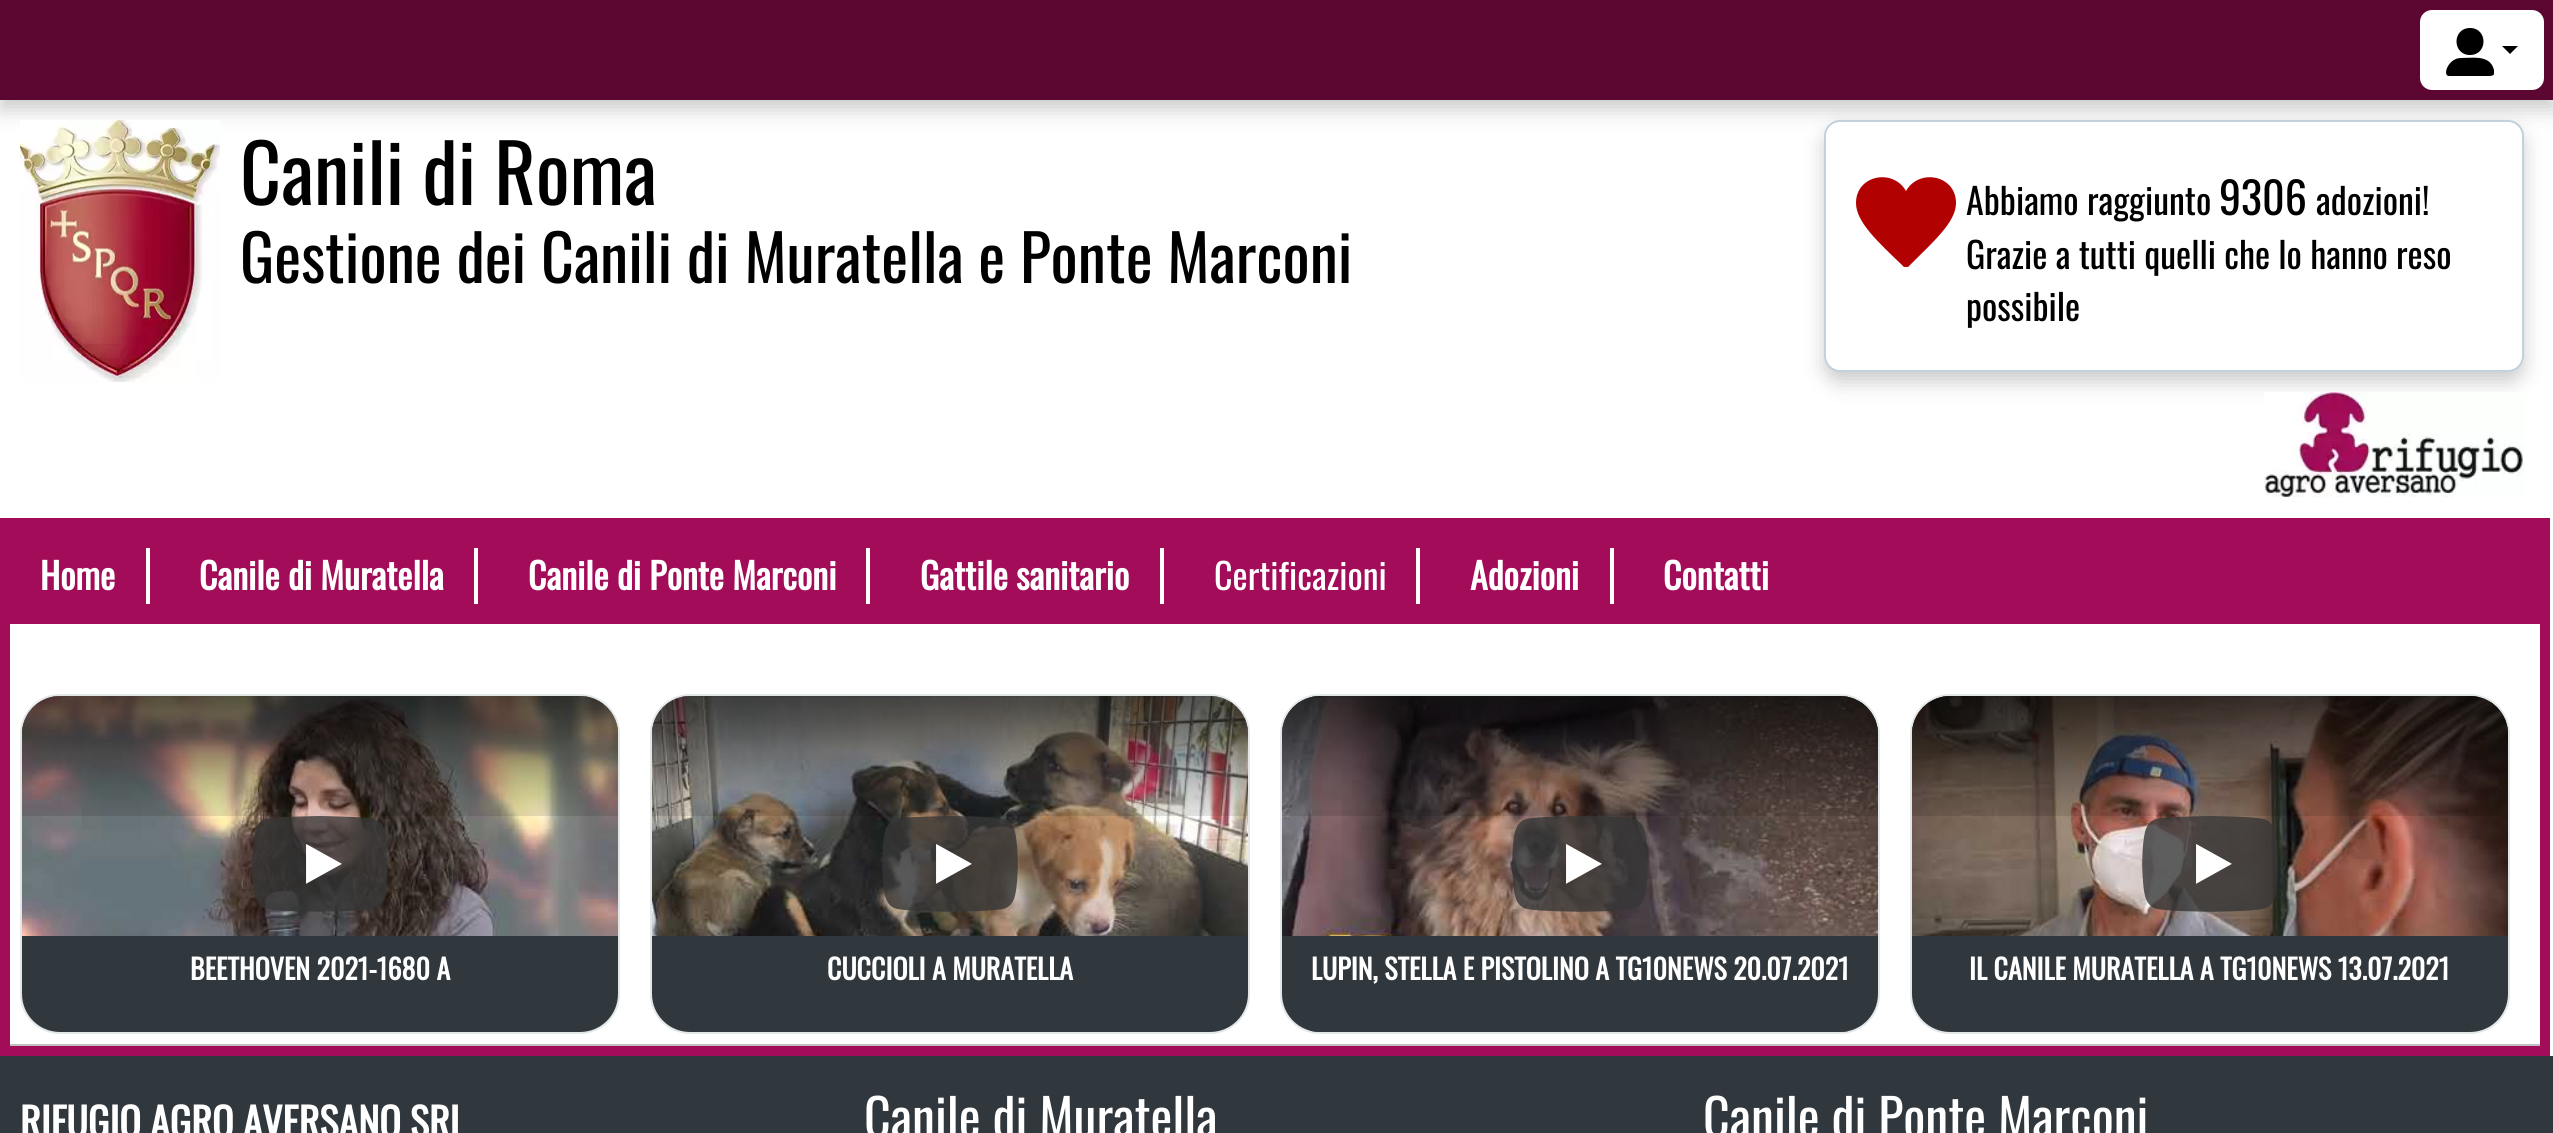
import math
import cairo


def round_path(ctx, x, y, w, h, r):
	ctx.new_sub_path()
	for i, (u, v) in enumerate([(x + w - r, y + h - r), (x + r, y + h - r), (x + r, y + r), (x + w - r, y + r)]):
		ctx.arc(u, v, r, i * math.pi / 2, (i + 1) * math.pi / 2)
	ctx.close_path()

def blur_box(ctx, x, y, w, h, r, blur, alpha):
	ctx.push_group_with_content(cairo.CONTENT_ALPHA)
	ctx.set_operator(cairo.OPERATOR_SOURCE)
	for i in range(15, -16, -2):
		e = blur * i / 6
		if min(w, h) + 2 * e > 0:
			ctx.set_source_rgba(0, 0, 0, alpha * math.erfc((i - 1) / 8.5) / 2)
			round_path(ctx, x - e, y - e, w + 2 * e, h + 2 * e, max(0, min(r + e + blur * .6, min(w, h) / 2 + e)))
			ctx.fill()
	ctx.mask(ctx.pop_group())

def paste(ctx, path, x, y, w, h):
	ctx.save()
	ctx.set_source_surface(cairo.ImageSurface.create_from_png(path), x, y)
	ctx.rectangle(x, y, w, h)
	ctx.fill()
	ctx.restore()

def draw(ctx):
	ctx.set_source_rgb(1, 1, 1)
	ctx.paint()
	ctx.set_source_rgb(0, 0, 0)
	blur_box(ctx, 0, 10, 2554, 100, 0, 10, 0.2)
	ctx.set_source_rgb(0.357, 0.031, 0.196)
	ctx.rectangle(0, 0, 2553, 100)
	ctx.fill()
	ctx.set_source_rgb(1, 1, 1)
	round_path(ctx, 2421, 11, 122, 78, 11)
	ctx.fill_preserve()
	ctx.stroke()
	ctx.save()
	ctx.rectangle(2446, 28, 48, 48)
	ctx.clip()
	ctx.set_source_rgb(0, 0, 0)
	ctx.new_path()
	ctx.move_to(2470, 55)
	ctx.curve_to(2488, 55, 2488, 28, 2470, 28)
	ctx.curve_to(2452, 28, 2452, 55, 2470, 55)
	ctx.close_path()
	ctx.move_to(2461, 58)
	ctx.curve_to(2448, 58, 2442, 76, 2449, 76)
	ctx.line_to(2484, 76)
	ctx.curve_to(2492, 76, 2497, 77, 2493, 67)
	ctx.curve_to(2488, 55, 2472, 58, 2461, 58)
	ctx.close_path()
	ctx.fill()
	ctx.restore()
	ctx.set_source_rgb(0, 0, 0)
	ctx.new_path()
	ctx.move_to(2502, 46)
	ctx.line_to(2518, 46)
	ctx.line_to(2510, 54)
	ctx.close_path()
	ctx.fill()
	paste(ctx, 'media/1.png', 20, 120, 200, 262)
	ctx.select_font_face('Oswald')
	ctx.set_font_size(80)
	ctx.move_to(240, 205)
	ctx.show_text('Canili di Roma')
	ctx.set_font_size(64)
	ctx.move_to(240, 283)
	ctx.show_text('Gestione dei Canili di Muratella e Ponte Marconi')
	ctx.set_source_rgb(0, 0, 0)
	blur_box(ctx, 1824, 130, 700, 252, 16, 10, 0.2)
	ctx.set_source_rgb(1, 1, 1)
	round_path(ctx, 1825, 121, 698, 250, 15)
	ctx.fill_preserve()
	ctx.set_source_rgb(0.757, 0.824, 0.867)
	ctx.stroke()
	ctx.set_source_rgb(0.694, 0.004, 0.004)
	ctx.new_path()
	ctx.move_to(1906, 191)
	ctx.curve_to(1893, 168, 1856, 175, 1856, 203)
	ctx.curve_to(1856, 222, 1878, 242, 1903, 266)
	ctx.curve_to(1903, 267, 1905, 267, 1906, 267)
	ctx.curve_to(1907, 267, 1909, 267, 1909, 266)
	ctx.curve_to(1934, 241, 1956, 222, 1956, 203)
	ctx.curve_to(1956, 175, 1919, 168, 1906, 191)
	ctx.close_path()
	ctx.fill()
	ctx.set_font_size(36)
	ctx.set_source_rgb(0, 0, 0)
	ctx.move_to(1966, 215)
	ctx.show_text('Abbiamo raggiunto')
	ctx.set_font_size(44)
	ctx.move_to(2219, 215)
	ctx.show_text('9306')
	ctx.set_font_size(36)
	for x, y, s in [
		(2316, 215, 'adozioni!'),
		(1966, 269, 'Grazie a tutti quelli che lo hanno reso'),
		(1966, 321, 'possibile'),
	]:
		ctx.move_to(x, y)
		ctx.show_text(s)
	paste(ctx, 'media/2.png', 2264, 392, 260, 106)
	ctx.set_source_rgb(0.639, 0.047, 0.349)
	ctx.rectangle(0, 518, 2550, 538)
	ctx.fill()
	ctx.set_source_rgb(1, 1, 1)
	ctx.rectangle(146, 548, 4, 56)
	ctx.fill()
	ctx.select_font_face('Oswald', cairo.FONT_SLANT_NORMAL, cairo.FONT_WEIGHT_BOLD)
	ctx.move_to(40, 590)
	ctx.show_text('Home')
	ctx.rectangle(474, 548, 4, 56)
	ctx.fill()
	ctx.move_to(199, 590)
	ctx.show_text('Canile di Muratella')
	ctx.rectangle(866, 548, 4, 56)
	ctx.fill()
	ctx.move_to(528, 590)
	ctx.show_text('Canile di Ponte Marconi')
	ctx.rectangle(1160, 548, 4, 56)
	ctx.fill()
	ctx.move_to(920, 590)
	ctx.show_text('Gattile sanitario')
	ctx.rectangle(1416, 548, 4, 56)
	ctx.fill()
	ctx.select_font_face('Oswald')
	ctx.move_to(1214, 590)
	ctx.show_text('Certificazioni')
	ctx.rectangle(1610, 548, 4, 56)
	ctx.fill()
	ctx.select_font_face('Oswald', cairo.FONT_SLANT_NORMAL, cairo.FONT_WEIGHT_BOLD)
	ctx.move_to(1470, 590)
	ctx.show_text('Adozioni')
	ctx.move_to(1663, 590)
	ctx.show_text('Contatti')
	ctx.rectangle(10, 624, 2530, 420)
	ctx.fill()
	round_path(ctx, 21, 695, 598, 338, 39)
	ctx.set_source_rgb(0.886, 0.906, 0.91)
	ctx.stroke()
	ctx.set_source_rgb(0, 0, 0)
	ctx.new_path()
	ctx.move_to(60, 696)
	ctx.line_to(580, 696)
	ctx.curve_to(601, 696, 618, 713, 618, 734)
	ctx.line_to(618, 936)
	ctx.line_to(22, 936)
	ctx.line_to(22, 734)
	ctx.curve_to(22, 713, 39, 696, 60, 696)
	ctx.close_path()
	ctx.fill()
	paste(ctx, 'media/3.png', 22, 696, 596, 240)
	paste(ctx, 'media/4.png', 22, 696, 596, 120)
	paste(ctx, 'media/5.png', 252, 816, 136, 96)
	ctx.set_source_rgb(0.188, 0.216, 0.239)
	ctx.new_path()
	ctx.move_to(22, 936)
	ctx.line_to(618, 936)
	ctx.line_to(618, 994)
	ctx.curve_to(618, 1015, 601, 1032, 580, 1032)
	ctx.line_to(60, 1032)
	ctx.curve_to(39, 1032, 22, 1015, 22, 994)
	ctx.close_path()
	ctx.fill()
	ctx.set_font_size(28)
	ctx.set_source_rgb(1, 1, 1)
	ctx.move_to(190, 980)
	ctx.show_text('BEETHOVEN 2021-1680 A')
	round_path(ctx, 651, 695, 598, 338, 39)
	ctx.set_source_rgb(0.886, 0.906, 0.91)
	ctx.stroke()
	ctx.set_source_rgb(0, 0, 0)
	ctx.new_path()
	ctx.move_to(690, 696)
	ctx.line_to(1210, 696)
	ctx.curve_to(1231, 696, 1248, 713, 1248, 734)
	ctx.line_to(1248, 936)
	ctx.line_to(652, 936)
	ctx.line_to(652, 734)
	ctx.curve_to(652, 713, 669, 696, 690, 696)
	ctx.close_path()
	ctx.fill()
	paste(ctx, 'media/6.png', 652, 696, 596, 240)
	paste(ctx, 'media/7.png', 652, 696, 596, 120)
	paste(ctx, 'media/8.png', 882, 816, 136, 96)
	ctx.set_source_rgb(0.188, 0.216, 0.239)
	ctx.new_path()
	ctx.move_to(652, 936)
	ctx.line_to(1248, 936)
	ctx.line_to(1248, 994)
	ctx.curve_to(1248, 1015, 1231, 1032, 1210, 1032)
	ctx.line_to(690, 1032)
	ctx.curve_to(669, 1032, 652, 1015, 652, 994)
	ctx.close_path()
	ctx.fill()
	ctx.set_source_rgb(1, 1, 1)
	ctx.move_to(827, 980)
	ctx.show_text('CUCCIOLI A MURATELLA')
	round_path(ctx, 1281, 695, 598, 338, 39)
	ctx.set_source_rgb(0.886, 0.906, 0.91)
	ctx.stroke()
	ctx.set_source_rgb(0, 0, 0)
	ctx.new_path()
	ctx.move_to(1320, 696)
	ctx.line_to(1840, 696)
	ctx.curve_to(1861, 696, 1878, 713, 1878, 734)
	ctx.line_to(1878, 936)
	ctx.line_to(1282, 936)
	ctx.line_to(1282, 734)
	ctx.curve_to(1282, 713, 1299, 696, 1320, 696)
	ctx.close_path()
	ctx.fill()
	paste(ctx, 'media/9.png', 1282, 696, 596, 240)
	paste(ctx, 'media/10.png', 1282, 696, 596, 120)
	paste(ctx, 'media/11.png', 1512, 816, 136, 96)
	ctx.set_source_rgb(0.188, 0.216, 0.239)
	ctx.new_path()
	ctx.move_to(1282, 936)
	ctx.line_to(1878, 936)
	ctx.line_to(1878, 994)
	ctx.curve_to(1878, 1015, 1861, 1032, 1840, 1032)
	ctx.line_to(1320, 1032)
	ctx.curve_to(1299, 1032, 1282, 1015, 1282, 994)
	ctx.close_path()
	ctx.fill()
	ctx.save()
	round_path(ctx, 1282, 696, 596, 336, 38)
	ctx.clip()
	ctx.rectangle(1310, 946, 538, 86)
	ctx.fill()
	ctx.restore()
	ctx.set_source_rgb(1, 1, 1)
	ctx.move_to(1311, 980)
	ctx.show_text('LUPIN, STELLA E PISTOLINO A TG10NEWS 20.07.2021')
	round_path(ctx, 1911, 695, 598, 338, 39)
	ctx.set_source_rgb(0.886, 0.906, 0.91)
	ctx.stroke()
	ctx.set_source_rgb(0, 0, 0)
	ctx.new_path()
	ctx.move_to(1950, 696)
	ctx.line_to(2470, 696)
	ctx.curve_to(2491, 696, 2508, 713, 2508, 734)
	ctx.line_to(2508, 936)
	ctx.line_to(1912, 936)
	ctx.line_to(1912, 734)
	ctx.curve_to(1912, 713, 1929, 696, 1950, 696)
	ctx.close_path()
	ctx.fill()
	paste(ctx, 'media/12.png', 1912, 696, 596, 240)
	paste(ctx, 'media/13.png', 1912, 696, 596, 120)
	paste(ctx, 'media/14.png', 2142, 816, 136, 96)
	ctx.set_source_rgb(0.188, 0.216, 0.239)
	ctx.new_path()
	ctx.move_to(1912, 936)
	ctx.line_to(2508, 936)
	ctx.line_to(2508, 994)
	ctx.curve_to(2508, 1015, 2491, 1032, 2470, 1032)
	ctx.line_to(1950, 1032)
	ctx.curve_to(1929, 1032, 1912, 1015, 1912, 994)
	ctx.close_path()
	ctx.fill()
	ctx.set_source_rgb(1, 1, 1)
	ctx.move_to(1969, 980)
	ctx.show_text('IL CANILE MURATELLA A TG10NEWS 13.07.2021')
	ctx.set_source_rgb(0.749, 0.749, 0.749)
	ctx.rectangle(10, 1044, 2530, 2)
	ctx.fill()
	ctx.set_source_rgb(0.188, 0.216, 0.239)
	ctx.rectangle(0, 1056, 2553, 77)
	ctx.fill()
	ctx.set_font_size(40)
	ctx.set_source_rgb(1, 1, 1)
	ctx.move_to(20, 1138)
	ctx.show_text('RIFUGIO AGRO AVERSANO SRL')
	ctx.select_font_face('Oswald')
	ctx.set_font_size(52)
	ctx.move_to(864, 1138)
	ctx.show_text('Canile di Muratella')
	ctx.move_to(1703, 1138)
	ctx.show_text('Canile di Ponte Marconi')


surface = cairo.ImageSurface(cairo.FORMAT_RGB24, 2553, 1133)
ctx = cairo.Context(surface)
options = cairo.FontOptions()
options.set_hint_metrics(cairo.HINT_METRICS_OFF)
options.set_hint_style(cairo.HINT_STYLE_NONE)
ctx.set_font_options(options)
ctx.set_miter_limit(4)
draw(ctx)
surface.write_to_png('image.png')
